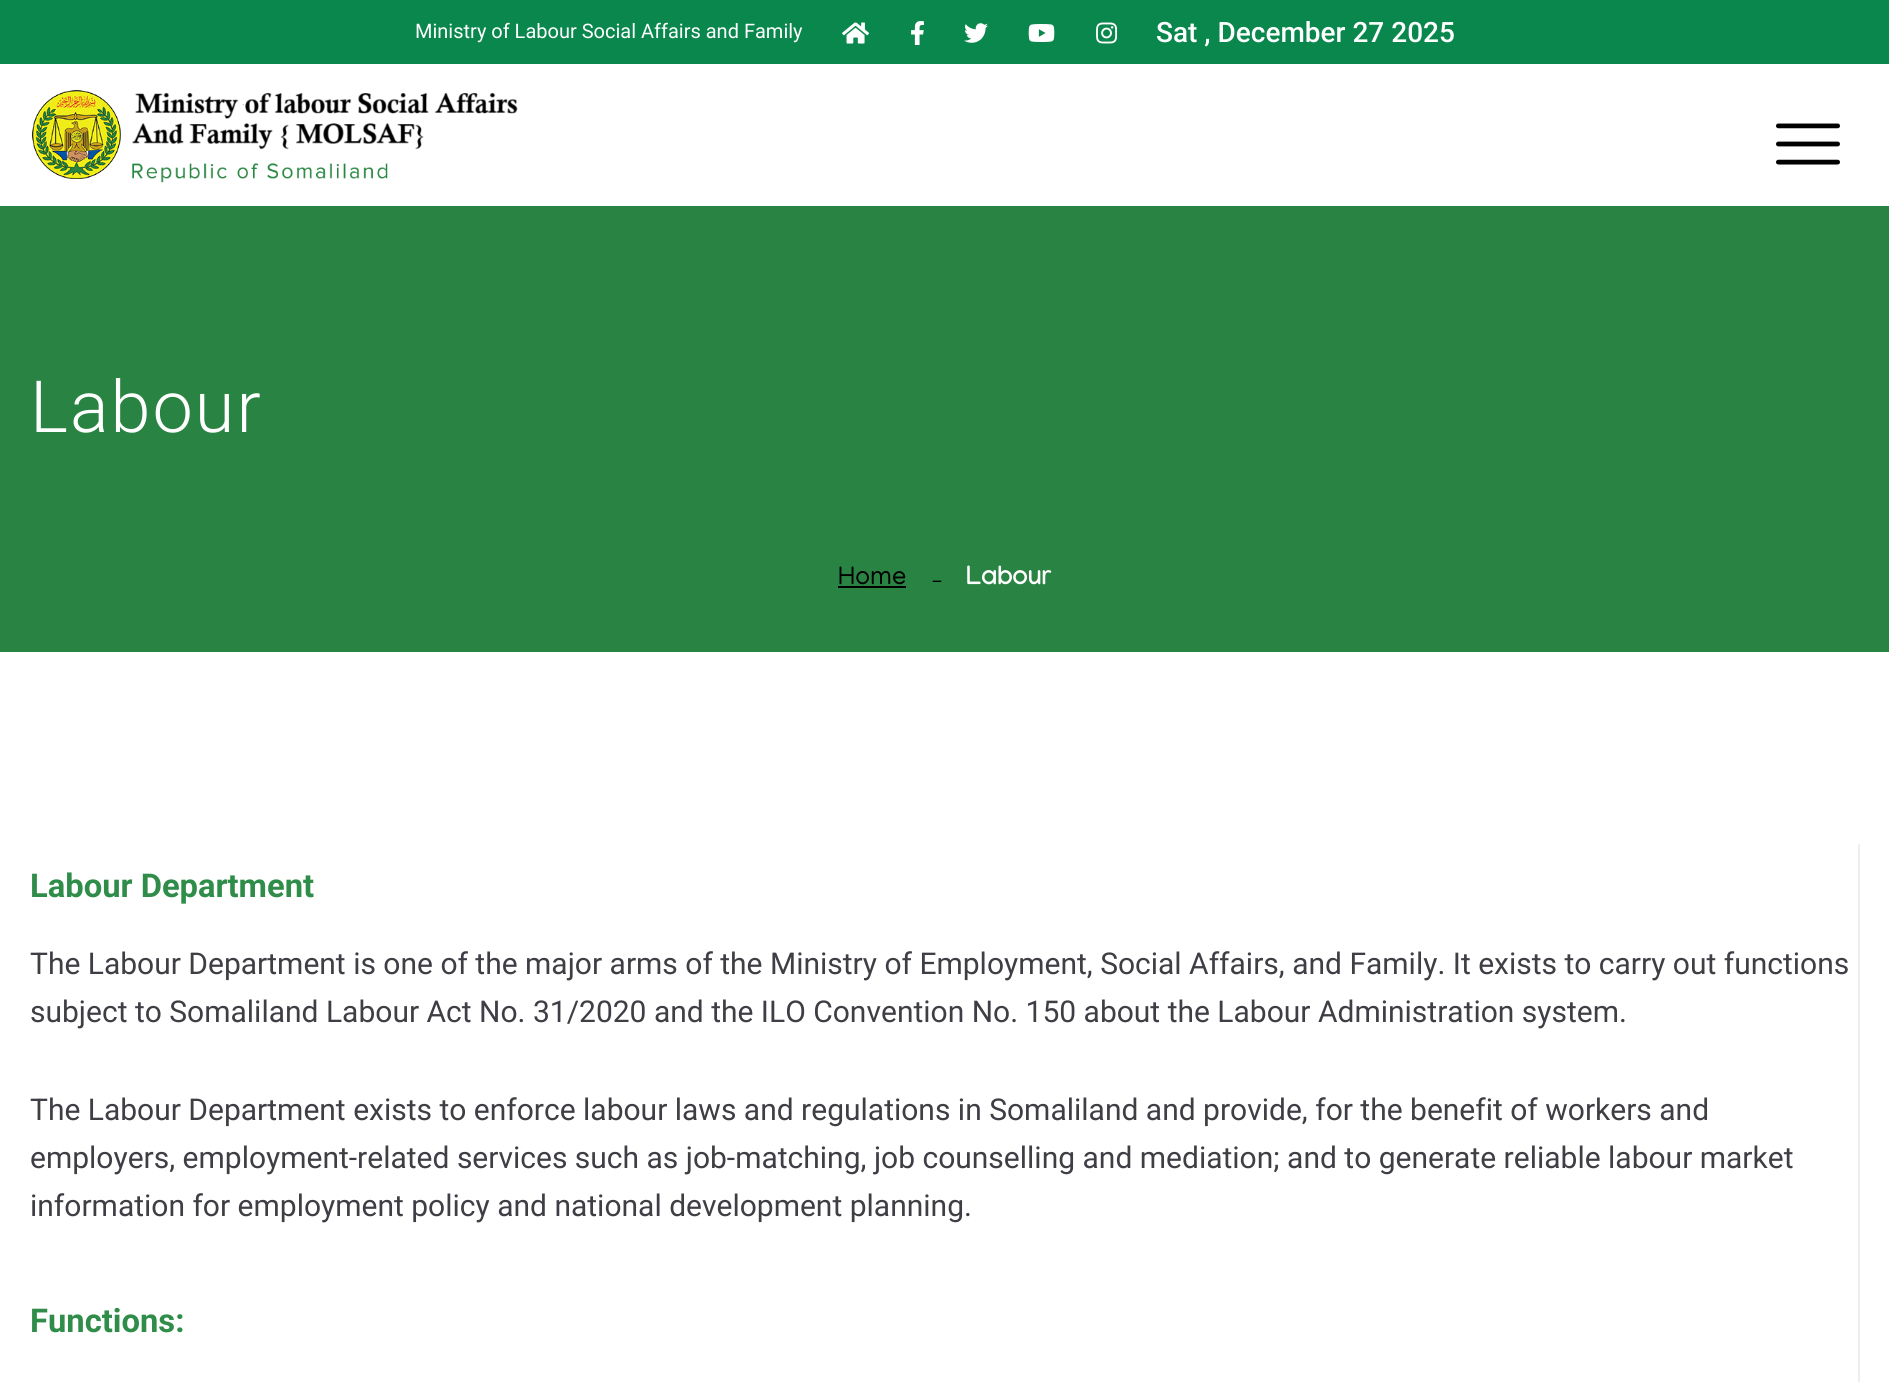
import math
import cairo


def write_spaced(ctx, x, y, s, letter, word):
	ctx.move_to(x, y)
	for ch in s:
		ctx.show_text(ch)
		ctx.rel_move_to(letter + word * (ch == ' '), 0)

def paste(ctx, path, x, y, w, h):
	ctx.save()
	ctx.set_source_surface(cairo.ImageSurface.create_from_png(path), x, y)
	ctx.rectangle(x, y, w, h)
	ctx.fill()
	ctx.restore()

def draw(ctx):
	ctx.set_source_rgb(1, 1, 1)
	ctx.paint()
	ctx.set_source_rgb(0.039, 0.529, 0.298)
	ctx.rectangle(0, 0, 1889, 64)
	ctx.fill()
	ctx.select_font_face('Roboto')
	ctx.set_font_size(20)
	ctx.set_source_rgb(1, 1, 1)
	ctx.move_to(415, 38)
	ctx.show_text('Ministry of Labour Social Affairs and Family')
	paste(ctx, 'media/1.png', 842, 22, 27, 22)
	paste(ctx, 'media/2.png', 911, 21, 13, 24)
	paste(ctx, 'media/3.png', 964, 23, 24, 20)
	paste(ctx, 'media/4.png', 1028, 24, 27, 18)
	paste(ctx, 'media/5.png', 1096, 22, 22, 22)
	ctx.select_font_face('Roboto Medium')
	ctx.set_font_size(28)
	ctx.move_to(1156, 42)
	ctx.show_text('Sat , December 27 2025')
	paste(ctx, 'media/6.png', 32, 90, 486, 93)
	paste(ctx, 'media/7.png', 1776, 123, 64, 42)
	ctx.set_source_rgb(0.161, 0.514, 0.259)
	ctx.rectangle(0, 206, 1889, 446)
	ctx.fill()
	ctx.select_font_face('Roboto Light')
	ctx.set_font_size(72)
	ctx.set_source_rgb(1, 1, 1)
	write_spaced(ctx, 30, 432, 'Labour', 2, 0)
	ctx.select_font_face('Manjari')
	ctx.set_font_size(26)
	ctx.set_source_rgb(0, 0, 0)
	ctx.move_to(838, 584)
	ctx.show_text('Home')
	ctx.rectangle(838, 586, 68, 2)
	ctx.fill()
	ctx.set_font_size(20)
	ctx.move_to(932, 582)
	ctx.show_text('_')
	ctx.select_font_face('Manjari', cairo.FONT_SLANT_NORMAL, cairo.FONT_WEIGHT_BOLD)
	ctx.set_font_size(26)
	ctx.set_source_rgb(1, 1, 1)
	ctx.move_to(966, 584)
	ctx.show_text('Labour')
	ctx.set_source_rgb(0.933, 0.933, 0.933)
	ctx.rectangle(1858, 844, 2, 538)
	ctx.fill()
	ctx.select_font_face('Roboto', cairo.FONT_SLANT_NORMAL, cairo.FONT_WEIGHT_BOLD)
	ctx.set_font_size(32.75)
	ctx.set_source_rgb(0.184, 0.553, 0.286)
	ctx.move_to(30, 897)
	ctx.show_text('Labour Department')
	ctx.select_font_face('Roboto')
	ctx.set_font_size(30)
	ctx.set_source_rgb(0.247, 0.243, 0.271)
	for x, y, s in [
		(30, 974, 'The Labour Department is one of the major arms of the Ministry of Employment, Social Affairs, and Family. It exists to carry out functions'),
		(30, 1022, 'subject to Somaliland Labour Act No. 31/2020 and the ILO Convention No. 150 about the Labour Administration system.'),
		(30, 1120, 'The Labour Department exists to enforce labour laws and regulations in Somaliland and provide, for the benefit of workers and'),
		(30, 1168, 'employers, employment-related services such as job-matching, job counselling and mediation; and to generate reliable labour market'),
		(30, 1216, 'information for employment policy and national development planning.'),
	]:
		ctx.move_to(x, y)
		ctx.show_text(s)
	ctx.select_font_face('Roboto', cairo.FONT_SLANT_NORMAL, cairo.FONT_WEIGHT_BOLD)
	ctx.set_font_size(32.75)
	ctx.set_source_rgb(0.184, 0.553, 0.286)
	ctx.move_to(30, 1332)
	ctx.show_text('Functions:')


surface = cairo.ImageSurface(cairo.FORMAT_RGB24, 1889, 1382)
ctx = cairo.Context(surface)
options = cairo.FontOptions()
options.set_hint_metrics(cairo.HINT_METRICS_OFF)
options.set_hint_style(cairo.HINT_STYLE_NONE)
ctx.set_font_options(options)
ctx.set_miter_limit(4)
draw(ctx)
surface.write_to_png('image.png')
